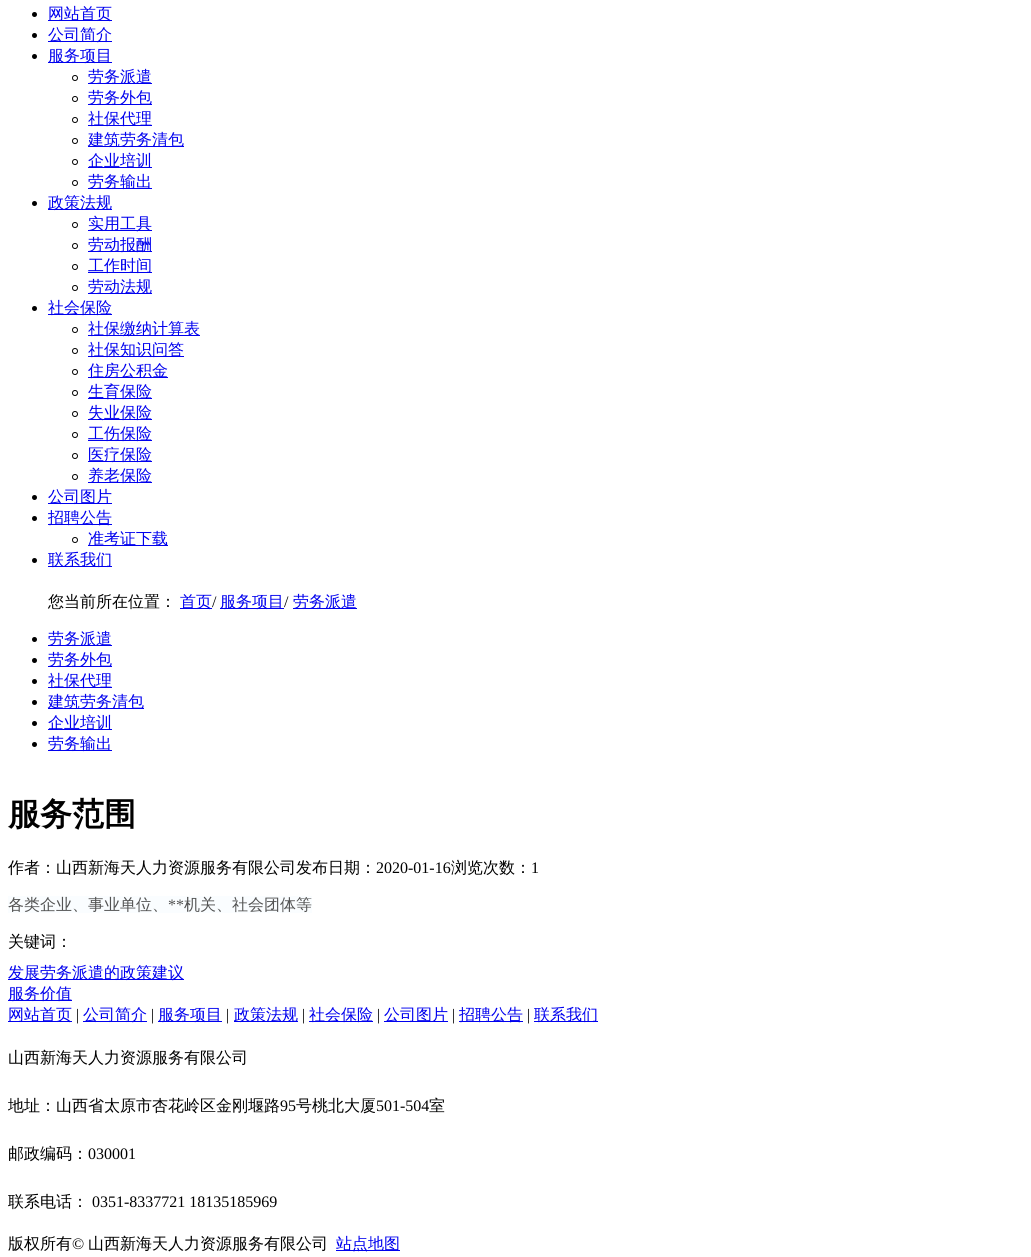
import math
import cairo


def draw(ctx):
	ctx.set_source_rgb(1, 1, 1)
	ctx.paint()
	ctx.set_source_rgb(0, 0, 0)
	ctx.arc(34.5, 14.5, 2.5, 0, 2 * math.pi)
	ctx.fill()
	ctx.set_source_rgb(0, 0, 0.933)
	ctx.rectangle(48, 20, 64, 1)
	ctx.fill()
	ctx.select_font_face('WenQuanYi Zen Hei Medium')
	ctx.set_font_size(16)
	ctx.move_to(48, 19)
	ctx.show_text('网站首页')
	ctx.set_source_rgb(0, 0, 0)
	ctx.new_path()
	ctx.arc(34.5, 35.5, 2.5, 0, 2 * math.pi)
	ctx.fill()
	ctx.set_source_rgb(0, 0, 0.933)
	ctx.rectangle(48, 41, 64, 1)
	ctx.fill()
	ctx.move_to(48, 40)
	ctx.show_text('公司简介')
	ctx.set_source_rgb(0, 0, 0)
	ctx.new_path()
	ctx.arc(34.5, 56.5, 2.5, 0, 2 * math.pi)
	ctx.fill()
	ctx.set_source_rgb(0, 0, 0.933)
	ctx.rectangle(48, 62, 64, 1)
	ctx.fill()
	ctx.move_to(48, 61)
	ctx.show_text('服务项目')
	ctx.new_path()
	ctx.arc(75, 78, 2.5, 0, 2 * math.pi)
	ctx.set_source_rgb(0, 0, 0)
	ctx.set_line_width(1)
	ctx.stroke()
	ctx.set_source_rgb(0, 0, 0.933)
	ctx.rectangle(88, 83, 64, 1)
	ctx.fill()
	ctx.move_to(88, 82)
	ctx.show_text('劳务派遣')
	ctx.new_path()
	ctx.arc(75, 99, 2.5, 0, 2 * math.pi)
	ctx.set_source_rgb(0, 0, 0)
	ctx.stroke()
	ctx.set_source_rgb(0, 0, 0.933)
	ctx.rectangle(88, 104, 64, 1)
	ctx.fill()
	ctx.move_to(88, 103)
	ctx.show_text('劳务外包')
	ctx.new_path()
	ctx.arc(75, 120, 2.5, 0, 2 * math.pi)
	ctx.set_source_rgb(0, 0, 0)
	ctx.stroke()
	ctx.set_source_rgb(0, 0, 0.933)
	ctx.rectangle(88, 125, 64, 1)
	ctx.fill()
	ctx.move_to(88, 124)
	ctx.show_text('社保代理')
	ctx.new_path()
	ctx.arc(75, 141, 2.5, 0, 2 * math.pi)
	ctx.set_source_rgb(0, 0, 0)
	ctx.stroke()
	ctx.set_source_rgb(0, 0, 0.933)
	ctx.rectangle(88, 146, 96, 1)
	ctx.fill()
	ctx.move_to(88, 145)
	ctx.show_text('建筑劳务清包')
	ctx.new_path()
	ctx.arc(75, 162, 2.5, 0, 2 * math.pi)
	ctx.set_source_rgb(0, 0, 0)
	ctx.stroke()
	ctx.set_source_rgb(0, 0, 0.933)
	ctx.rectangle(88, 167, 64, 1)
	ctx.fill()
	ctx.move_to(88, 166)
	ctx.show_text('企业培训')
	ctx.new_path()
	ctx.arc(75, 183, 2.5, 0, 2 * math.pi)
	ctx.set_source_rgb(0, 0, 0)
	ctx.stroke()
	ctx.set_source_rgb(0, 0, 0.933)
	ctx.rectangle(88, 188, 64, 1)
	ctx.fill()
	ctx.move_to(88, 187)
	ctx.show_text('劳务输出')
	ctx.set_source_rgb(0, 0, 0)
	ctx.new_path()
	ctx.arc(34.5, 203.5, 2.5, 0, 2 * math.pi)
	ctx.fill()
	ctx.set_source_rgb(0, 0, 0.933)
	ctx.rectangle(48, 209, 64, 1)
	ctx.fill()
	ctx.move_to(48, 208)
	ctx.show_text('政策法规')
	ctx.new_path()
	ctx.arc(75, 225, 2.5, 0, 2 * math.pi)
	ctx.set_source_rgb(0, 0, 0)
	ctx.stroke()
	ctx.set_source_rgb(0, 0, 0.933)
	ctx.rectangle(88, 230, 64, 1)
	ctx.fill()
	ctx.move_to(88, 229)
	ctx.show_text('实用工具')
	ctx.new_path()
	ctx.arc(75, 246, 2.5, 0, 2 * math.pi)
	ctx.set_source_rgb(0, 0, 0)
	ctx.stroke()
	ctx.set_source_rgb(0, 0, 0.933)
	ctx.rectangle(88, 251, 64, 1)
	ctx.fill()
	ctx.move_to(88, 250)
	ctx.show_text('劳动报酬')
	ctx.new_path()
	ctx.arc(75, 267, 2.5, 0, 2 * math.pi)
	ctx.set_source_rgb(0, 0, 0)
	ctx.stroke()
	ctx.set_source_rgb(0, 0, 0.933)
	ctx.rectangle(88, 272, 64, 1)
	ctx.fill()
	ctx.move_to(88, 271)
	ctx.show_text('工作时间')
	ctx.new_path()
	ctx.arc(75, 288, 2.5, 0, 2 * math.pi)
	ctx.set_source_rgb(0, 0, 0)
	ctx.stroke()
	ctx.set_source_rgb(0, 0, 0.933)
	ctx.rectangle(88, 293, 64, 1)
	ctx.fill()
	ctx.move_to(88, 292)
	ctx.show_text('劳动法规')
	ctx.set_source_rgb(0, 0, 0)
	ctx.new_path()
	ctx.arc(34.5, 308.5, 2.5, 0, 2 * math.pi)
	ctx.fill()
	ctx.set_source_rgb(0, 0, 0.933)
	ctx.rectangle(48, 314, 64, 1)
	ctx.fill()
	ctx.move_to(48, 313)
	ctx.show_text('社会保险')
	ctx.new_path()
	ctx.arc(75, 330, 2.5, 0, 2 * math.pi)
	ctx.set_source_rgb(0, 0, 0)
	ctx.stroke()
	ctx.set_source_rgb(0, 0, 0.933)
	ctx.rectangle(88, 335, 112, 1)
	ctx.fill()
	ctx.move_to(88, 334)
	ctx.show_text('社保缴纳计算表')
	ctx.new_path()
	ctx.arc(75, 351, 2.5, 0, 2 * math.pi)
	ctx.set_source_rgb(0, 0, 0)
	ctx.stroke()
	ctx.set_source_rgb(0, 0, 0.933)
	ctx.rectangle(88, 356, 96, 1)
	ctx.fill()
	ctx.move_to(88, 355)
	ctx.show_text('社保知识问答')
	ctx.new_path()
	ctx.arc(75, 372, 2.5, 0, 2 * math.pi)
	ctx.set_source_rgb(0, 0, 0)
	ctx.stroke()
	ctx.set_source_rgb(0, 0, 0.933)
	ctx.rectangle(88, 377, 80, 1)
	ctx.fill()
	ctx.move_to(88, 376)
	ctx.show_text('住房公积金')
	ctx.new_path()
	ctx.arc(75, 393, 2.5, 0, 2 * math.pi)
	ctx.set_source_rgb(0, 0, 0)
	ctx.stroke()
	ctx.set_source_rgb(0, 0, 0.933)
	ctx.rectangle(88, 398, 64, 1)
	ctx.fill()
	ctx.move_to(88, 397)
	ctx.show_text('生育保险')
	ctx.new_path()
	ctx.arc(75, 414, 2.5, 0, 2 * math.pi)
	ctx.set_source_rgb(0, 0, 0)
	ctx.stroke()
	ctx.set_source_rgb(0, 0, 0.933)
	ctx.rectangle(88, 419, 64, 1)
	ctx.fill()
	ctx.move_to(88, 418)
	ctx.show_text('失业保险')
	ctx.new_path()
	ctx.arc(75, 435, 2.5, 0, 2 * math.pi)
	ctx.set_source_rgb(0, 0, 0)
	ctx.stroke()
	ctx.set_source_rgb(0, 0, 0.933)
	ctx.rectangle(88, 440, 64, 1)
	ctx.fill()
	ctx.move_to(88, 439)
	ctx.show_text('工伤保险')
	ctx.new_path()
	ctx.arc(75, 456, 2.5, 0, 2 * math.pi)
	ctx.set_source_rgb(0, 0, 0)
	ctx.stroke()
	ctx.set_source_rgb(0, 0, 0.933)
	ctx.rectangle(88, 461, 64, 1)
	ctx.fill()
	ctx.move_to(88, 460)
	ctx.show_text('医疗保险')
	ctx.new_path()
	ctx.arc(75, 477, 2.5, 0, 2 * math.pi)
	ctx.set_source_rgb(0, 0, 0)
	ctx.stroke()
	ctx.set_source_rgb(0, 0, 0.933)
	ctx.rectangle(88, 482, 64, 1)
	ctx.fill()
	ctx.move_to(88, 481)
	ctx.show_text('养老保险')
	ctx.set_source_rgb(0, 0, 0)
	ctx.new_path()
	ctx.arc(34.5, 497.5, 2.5, 0, 2 * math.pi)
	ctx.fill()
	ctx.set_source_rgb(0, 0, 0.933)
	ctx.rectangle(48, 503, 64, 1)
	ctx.fill()
	ctx.move_to(48, 502)
	ctx.show_text('公司图片')
	ctx.set_source_rgb(0, 0, 0)
	ctx.new_path()
	ctx.arc(34.5, 518.5, 2.5, 0, 2 * math.pi)
	ctx.fill()
	ctx.set_source_rgb(0, 0, 0.933)
	ctx.rectangle(48, 524, 64, 1)
	ctx.fill()
	ctx.move_to(48, 523)
	ctx.show_text('招聘公告')
	ctx.new_path()
	ctx.arc(75, 540, 2.5, 0, 2 * math.pi)
	ctx.set_source_rgb(0, 0, 0)
	ctx.stroke()
	ctx.set_source_rgb(0, 0, 0.933)
	ctx.rectangle(88, 545, 80, 1)
	ctx.fill()
	ctx.move_to(88, 544)
	ctx.show_text('准考证下载')
	ctx.set_source_rgb(0, 0, 0)
	ctx.new_path()
	ctx.arc(34.5, 560.5, 2.5, 0, 2 * math.pi)
	ctx.fill()
	ctx.set_source_rgb(0, 0, 0.933)
	ctx.rectangle(48, 566, 64, 1)
	ctx.fill()
	ctx.move_to(48, 565)
	ctx.show_text('联系我们')
	ctx.set_source_rgb(0, 0, 0)
	ctx.move_to(48, 607)
	ctx.show_text('您当前所在位置：')
	ctx.set_source_rgb(0, 0, 0.933)
	ctx.rectangle(180, 608, 32, 1)
	ctx.fill()
	ctx.move_to(180, 607)
	ctx.show_text('首页')
	ctx.select_font_face('Liberation Serif')
	ctx.set_source_rgb(0, 0, 0)
	ctx.move_to(212, 607)
	ctx.show_text('/')
	ctx.set_source_rgb(0, 0, 0.933)
	ctx.rectangle(220, 608, 64, 1)
	ctx.fill()
	ctx.select_font_face('WenQuanYi Zen Hei Medium')
	ctx.move_to(220, 607)
	ctx.show_text('服务项目')
	ctx.select_font_face('Liberation Serif')
	ctx.set_source_rgb(0, 0, 0)
	ctx.move_to(284, 607)
	ctx.show_text('/')
	ctx.set_source_rgb(0, 0, 0.933)
	ctx.rectangle(293, 608, 64, 1)
	ctx.fill()
	ctx.select_font_face('WenQuanYi Zen Hei Medium')
	ctx.move_to(293, 607)
	ctx.show_text('劳务派遣')
	ctx.set_source_rgb(0, 0, 0)
	ctx.new_path()
	ctx.arc(34.5, 639.5, 2.5, 0, 2 * math.pi)
	ctx.fill()
	ctx.set_source_rgb(0, 0, 0.933)
	ctx.rectangle(48, 645, 64, 1)
	ctx.fill()
	ctx.move_to(48, 644)
	ctx.show_text('劳务派遣')
	ctx.set_source_rgb(0, 0, 0)
	ctx.new_path()
	ctx.arc(34.5, 660.5, 2.5, 0, 2 * math.pi)
	ctx.fill()
	ctx.set_source_rgb(0, 0, 0.933)
	ctx.rectangle(48, 666, 64, 1)
	ctx.fill()
	ctx.move_to(48, 665)
	ctx.show_text('劳务外包')
	ctx.set_source_rgb(0, 0, 0)
	ctx.new_path()
	ctx.arc(34.5, 681.5, 2.5, 0, 2 * math.pi)
	ctx.fill()
	ctx.set_source_rgb(0, 0, 0.933)
	ctx.rectangle(48, 687, 64, 1)
	ctx.fill()
	ctx.move_to(48, 686)
	ctx.show_text('社保代理')
	ctx.set_source_rgb(0, 0, 0)
	ctx.new_path()
	ctx.arc(34.5, 702.5, 2.5, 0, 2 * math.pi)
	ctx.fill()
	ctx.set_source_rgb(0, 0, 0.933)
	ctx.rectangle(48, 708, 96, 1)
	ctx.fill()
	ctx.move_to(48, 707)
	ctx.show_text('建筑劳务清包')
	ctx.set_source_rgb(0, 0, 0)
	ctx.new_path()
	ctx.arc(34.5, 723.5, 2.5, 0, 2 * math.pi)
	ctx.fill()
	ctx.set_source_rgb(0, 0, 0.933)
	ctx.rectangle(48, 729, 64, 1)
	ctx.fill()
	ctx.move_to(48, 728)
	ctx.show_text('企业培训')
	ctx.set_source_rgb(0, 0, 0)
	ctx.new_path()
	ctx.arc(34.5, 744.5, 2.5, 0, 2 * math.pi)
	ctx.fill()
	ctx.set_source_rgb(0, 0, 0.933)
	ctx.rectangle(48, 750, 64, 1)
	ctx.fill()
	ctx.move_to(48, 749)
	ctx.show_text('劳务输出')
	ctx.select_font_face('WenQuanYi Zen Hei', cairo.FONT_SLANT_NORMAL, cairo.FONT_WEIGHT_BOLD)
	ctx.set_font_size(32)
	ctx.set_source_rgb(0, 0, 0)
	ctx.move_to(8, 825)
	ctx.show_text('服务范围')
	ctx.select_font_face('WenQuanYi Zen Hei Medium')
	ctx.set_font_size(16)
	ctx.move_to(8, 873)
	ctx.show_text('作者：山西新海天人力资源服务有限公司发布日期：')
	ctx.select_font_face('Liberation Serif')
	ctx.move_to(376, 873)
	ctx.show_text('2020-01-16')
	ctx.select_font_face('WenQuanYi Zen Hei Medium')
	ctx.move_to(451, 873)
	ctx.show_text('浏览次数：')
	ctx.select_font_face('Liberation Serif')
	ctx.move_to(531, 873)
	ctx.show_text('1')
	ctx.set_source_rgb(0.98, 0.992, 1)
	ctx.rectangle(8, 896, 304, 17)
	ctx.fill()
	ctx.select_font_face('WenQuanYi Zen Hei Medium')
	ctx.set_source_rgb(0.325, 0.325, 0.325)
	ctx.move_to(8, 910)
	ctx.show_text('各类企业、事业单位、')
	ctx.select_font_face('Liberation Serif')
	ctx.move_to(168, 910)
	ctx.show_text('**')
	ctx.select_font_face('WenQuanYi Zen Hei Medium')
	ctx.move_to(184, 910)
	ctx.show_text('机关、社会团体等')
	ctx.set_source_rgb(0, 0, 0)
	ctx.move_to(8, 947)
	ctx.show_text('关键词：')
	ctx.set_source_rgb(0, 0, 0.933)
	ctx.rectangle(8, 979, 176, 1)
	ctx.fill()
	ctx.move_to(8, 978)
	ctx.show_text('发展劳务派遣的政策建议')
	ctx.rectangle(8, 1000, 64, 1)
	ctx.fill()
	ctx.move_to(8, 999)
	ctx.show_text('服务价值')
	ctx.rectangle(8, 1021, 64, 1)
	ctx.fill()
	ctx.move_to(8, 1020)
	ctx.show_text('网站首页')
	ctx.select_font_face('Liberation Serif')
	ctx.set_source_rgb(0, 0, 0)
	ctx.move_to(76, 1020)
	ctx.show_text('|')
	ctx.set_source_rgb(0, 0, 0.933)
	ctx.rectangle(83, 1021, 64, 1)
	ctx.fill()
	ctx.select_font_face('WenQuanYi Zen Hei Medium')
	ctx.move_to(83, 1020)
	ctx.show_text('公司简介')
	ctx.select_font_face('Liberation Serif')
	ctx.set_source_rgb(0, 0, 0)
	ctx.move_to(151, 1020)
	ctx.show_text('|')
	ctx.set_source_rgb(0, 0, 0.933)
	ctx.rectangle(158, 1021, 64, 1)
	ctx.fill()
	ctx.select_font_face('WenQuanYi Zen Hei Medium')
	ctx.move_to(158, 1020)
	ctx.show_text('服务项目')
	ctx.select_font_face('Liberation Serif')
	ctx.set_source_rgb(0, 0, 0)
	ctx.move_to(226, 1020)
	ctx.show_text('|')
	ctx.set_source_rgb(0, 0, 0.933)
	ctx.rectangle(234, 1021, 64, 1)
	ctx.fill()
	ctx.select_font_face('WenQuanYi Zen Hei Medium')
	ctx.move_to(234, 1020)
	ctx.show_text('政策法规')
	ctx.select_font_face('Liberation Serif')
	ctx.set_source_rgb(0, 0, 0)
	ctx.move_to(302, 1020)
	ctx.show_text('|')
	ctx.set_source_rgb(0, 0, 0.933)
	ctx.rectangle(309, 1021, 64, 1)
	ctx.fill()
	ctx.select_font_face('WenQuanYi Zen Hei Medium')
	ctx.move_to(309, 1020)
	ctx.show_text('社会保险')
	ctx.select_font_face('Liberation Serif')
	ctx.set_source_rgb(0, 0, 0)
	ctx.move_to(377, 1020)
	ctx.show_text('|')
	ctx.set_source_rgb(0, 0, 0.933)
	ctx.rectangle(384, 1021, 64, 1)
	ctx.fill()
	ctx.select_font_face('WenQuanYi Zen Hei Medium')
	ctx.move_to(384, 1020)
	ctx.show_text('公司图片')
	ctx.select_font_face('Liberation Serif')
	ctx.set_source_rgb(0, 0, 0)
	ctx.move_to(452, 1020)
	ctx.show_text('|')
	ctx.set_source_rgb(0, 0, 0.933)
	ctx.rectangle(459, 1021, 64, 1)
	ctx.fill()
	ctx.select_font_face('WenQuanYi Zen Hei Medium')
	ctx.move_to(459, 1020)
	ctx.show_text('招聘公告')
	ctx.select_font_face('Liberation Serif')
	ctx.set_source_rgb(0, 0, 0)
	ctx.move_to(527, 1020)
	ctx.show_text('|')
	ctx.set_source_rgb(0, 0, 0.933)
	ctx.rectangle(534, 1021, 64, 1)
	ctx.fill()
	ctx.select_font_face('WenQuanYi Zen Hei Medium')
	ctx.move_to(534, 1020)
	ctx.show_text('联系我们')
	ctx.set_source_rgb(0, 0, 0)
	ctx.move_to(8, 1063)
	ctx.show_text('山西新海天人力资源服务有限公司')
	ctx.move_to(8, 1111)
	ctx.show_text('地址：山西省太原市杏花岭区金刚堰路')
	ctx.select_font_face('Liberation Serif')
	ctx.move_to(280, 1111)
	ctx.show_text('95')
	ctx.select_font_face('WenQuanYi Zen Hei Medium')
	ctx.move_to(296, 1111)
	ctx.show_text('号桃北大厦')
	ctx.select_font_face('Liberation Serif')
	ctx.move_to(376, 1111)
	ctx.show_text('501-504')
	ctx.select_font_face('WenQuanYi Zen Hei Medium')
	ctx.move_to(429, 1111)
	ctx.show_text('室')
	ctx.move_to(8, 1159)
	ctx.show_text('邮政编码：')
	ctx.select_font_face('Liberation Serif')
	ctx.move_to(88, 1159)
	ctx.show_text('030001')
	ctx.select_font_face('WenQuanYi Zen Hei Medium')
	ctx.move_to(8, 1207)
	ctx.show_text('联系电话：')
	ctx.select_font_face('Liberation Serif')
	ctx.move_to(92, 1207)
	ctx.show_text('0351-8337721 18135185969')
	ctx.select_font_face('WenQuanYi Zen Hei Medium')
	ctx.move_to(8, 1249)
	ctx.show_text('版权所有')
	ctx.select_font_face('Liberation Serif')
	ctx.move_to(72, 1249)
	ctx.show_text('©')
	ctx.select_font_face('WenQuanYi Zen Hei Medium')
	ctx.move_to(88, 1249)
	ctx.show_text('山西新海天人力资源服务有限公司')
	ctx.set_source_rgb(0, 0, 0.933)
	ctx.rectangle(336, 1250, 64, 1)
	ctx.fill()
	ctx.move_to(336, 1249)
	ctx.show_text('站点地图')


surface = cairo.ImageSurface(cairo.FORMAT_RGB24, 1031, 1257)
ctx = cairo.Context(surface)
options = cairo.FontOptions()
options.set_hint_metrics(cairo.HINT_METRICS_OFF)
options.set_hint_style(cairo.HINT_STYLE_NONE)
ctx.set_font_options(options)
ctx.set_miter_limit(4)
draw(ctx)
surface.write_to_png('image.png')
